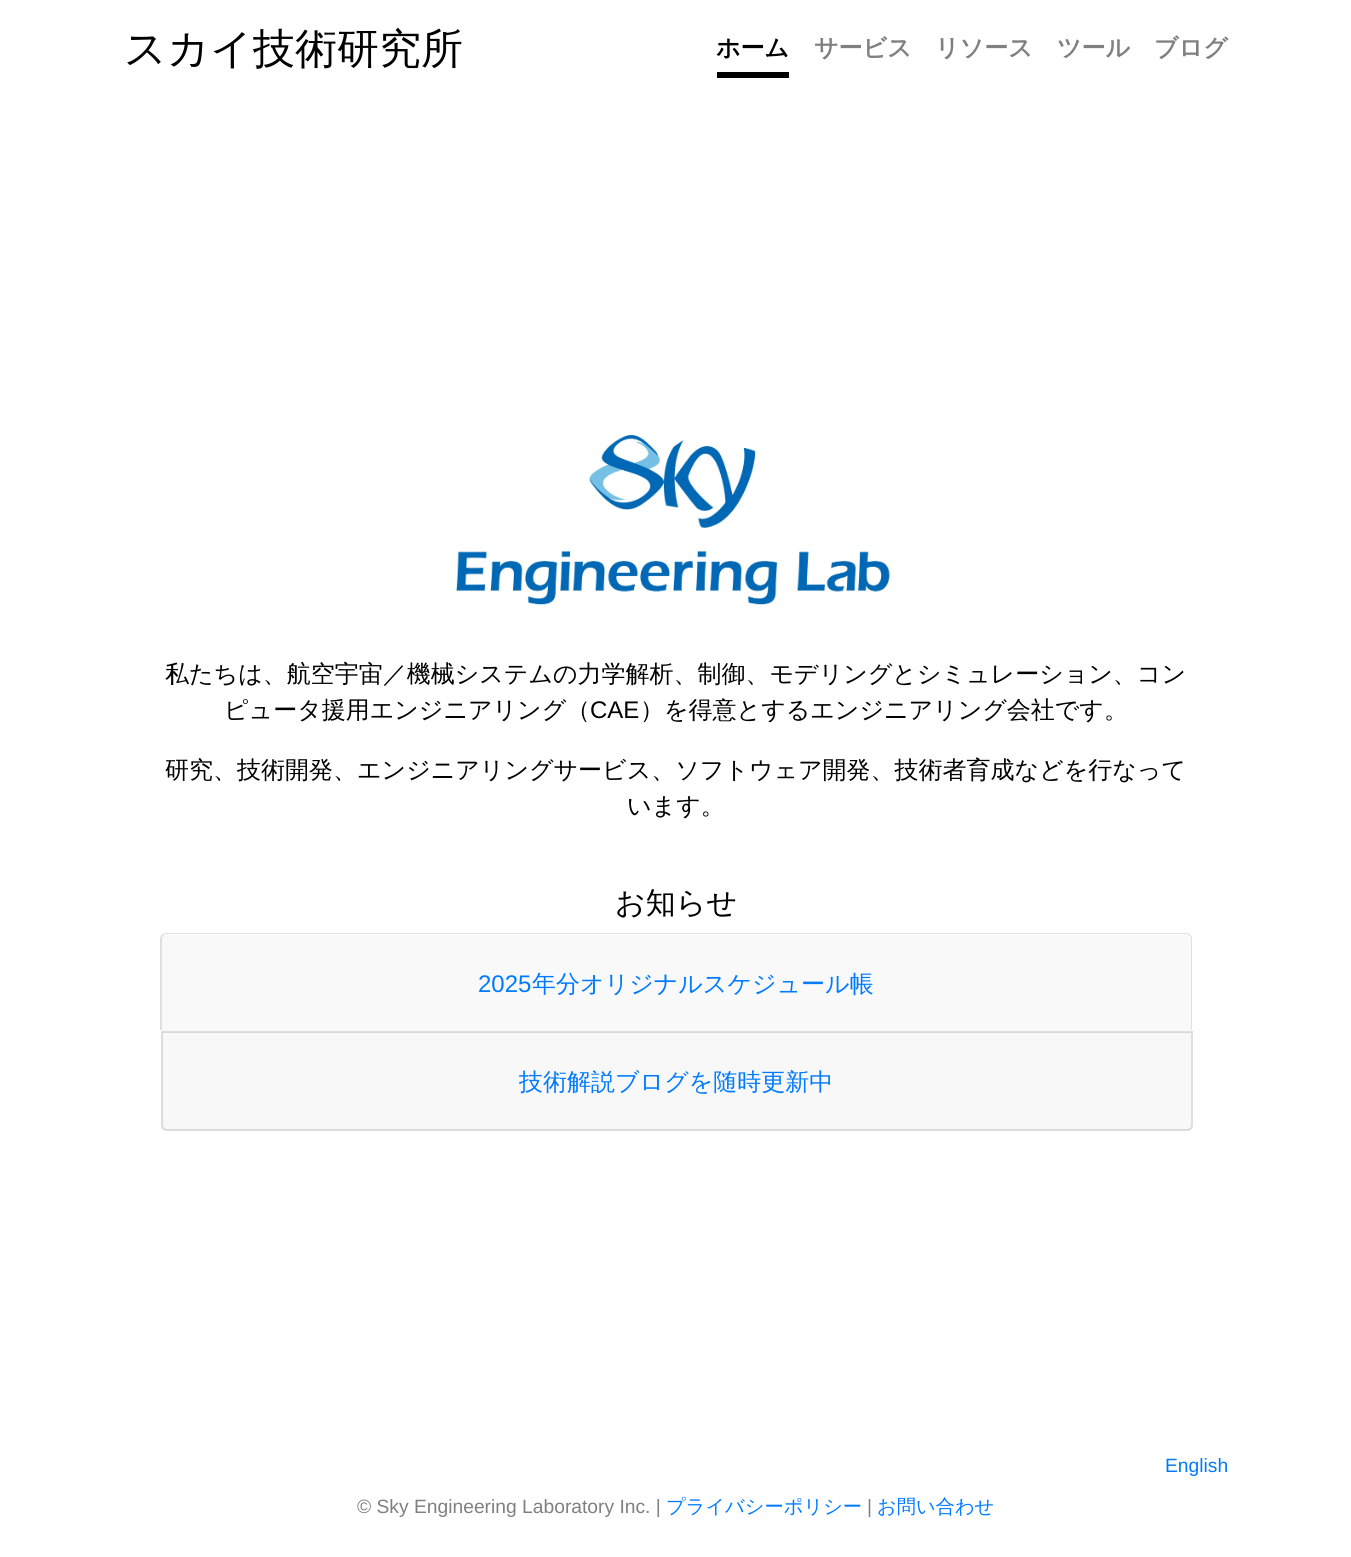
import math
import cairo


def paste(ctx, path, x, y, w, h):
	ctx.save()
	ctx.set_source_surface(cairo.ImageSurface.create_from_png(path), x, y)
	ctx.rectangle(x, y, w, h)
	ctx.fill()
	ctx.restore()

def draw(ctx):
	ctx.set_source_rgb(1, 1, 1)
	ctx.paint()
	ctx.select_font_face('WenQuanYi Zen Hei Medium')
	ctx.set_font_size(42)
	ctx.set_source_rgb(0, 0, 0)
	ctx.move_to(124, 63)
	ctx.show_text('スカイ技術研究所')
	ctx.rectangle(717, 72, 72, 6)
	ctx.fill()
	ctx.select_font_face('WenQuanYi Zen Hei', cairo.FONT_SLANT_NORMAL, cairo.FONT_WEIGHT_BOLD)
	ctx.set_font_size(24)
	ctx.move_to(716, 56)
	ctx.show_text('ホーム')
	ctx.set_source_rgb(0.502, 0.502, 0.502)
	for x, y, s in [
		(814, 56, 'サービス'),
		(935, 56, 'リソース'),
		(1057, 56, 'ツール'),
		(1154, 56, 'ブログ'),
	]:
		ctx.move_to(x, y)
		ctx.show_text(s)
	paste(ctx, 'media/1.png', 456, 434, 434, 171)
	ctx.select_font_face('WenQuanYi Zen Hei Medium')
	ctx.set_source_rgb(0, 0, 0)
	ctx.move_to(165, 682)
	ctx.show_text('私たちは、航空宇宙／機械システムの力学解析、制御、モデリングとシミュレーション、コン')
	ctx.move_to(224, 718)
	ctx.show_text('ピュータ援用エンジニアリング（')
	ctx.select_font_face('Liberation Sans')
	ctx.move_to(590, 718)
	ctx.show_text('CAE')
	ctx.select_font_face('WenQuanYi Zen Hei Medium')
	for x, y, s in [
		(640, 718, '）を得意とするエンジニアリング会社です。'),
		(165, 778, '研究、技術開発、エンジニアリングサービス、ソフトウェア開発、技術者育成などを行なって'),
		(627, 814, 'います。'),
	]:
		ctx.move_to(x, y)
		ctx.show_text(s)
	ctx.set_font_size(30)
	ctx.move_to(615, 913)
	ctx.show_text('お知らせ')
	ctx.set_source_rgb(0.875, 0.875, 0.875)
	ctx.set_fill_rule(cairo.FILL_RULE_EVEN_ODD)
	ctx.new_path()
	ctx.move_to(166, 933)
	ctx.line_to(1186, 933)
	ctx.curve_to(1190, 933, 1192, 936, 1192, 939)
	ctx.line_to(1192, 1030)
	ctx.line_to(160, 1030)
	ctx.line_to(160, 939)
	ctx.curve_to(160, 936, 163, 933, 166, 933)
	ctx.close_path()
	ctx.move_to(166, 934)
	ctx.line_to(1186, 934)
	ctx.curve_to(1189, 934, 1191, 937, 1191, 939)
	ctx.line_to(1191, 1030)
	ctx.line_to(162, 1030)
	ctx.line_to(162, 939)
	ctx.curve_to(162, 937, 164, 934, 166, 934)
	ctx.close_path()
	ctx.fill()
	ctx.set_source_rgb(0.973, 0.973, 0.973)
	ctx.new_path()
	ctx.move_to(167, 935)
	ctx.line_to(1186, 935)
	ctx.curve_to(1189, 935, 1191, 937, 1191, 940)
	ctx.line_to(1191, 1031)
	ctx.line_to(162, 1031)
	ctx.line_to(162, 940)
	ctx.curve_to(162, 937, 164, 935, 167, 935)
	ctx.close_path()
	ctx.fill()
	ctx.select_font_face('Liberation Sans')
	ctx.set_font_size(24)
	ctx.set_source_rgb(0, 0.482, 1)
	ctx.move_to(478, 992)
	ctx.show_text('2025')
	ctx.select_font_face('WenQuanYi Zen Hei Medium')
	ctx.move_to(532, 992)
	ctx.show_text('年分オリジナルスケジュール帳')
	ctx.new_path()
	ctx.move_to(162, 1032)
	ctx.line_to(1192, 1032)
	ctx.line_to(1192, 1125)
	ctx.curve_to(1192, 1128, 1190, 1130, 1187, 1130)
	ctx.line_to(167, 1130)
	ctx.curve_to(164, 1130, 162, 1128, 162, 1125)
	ctx.close_path()
	ctx.set_source_rgb(0.875, 0.875, 0.875)
	ctx.stroke()
	ctx.set_source_rgba(0, 0, 0, 0.03)
	ctx.rectangle(162, 1032, 1029, 98)
	ctx.fill()
	ctx.set_source_rgb(0, 0.482, 1)
	ctx.move_to(519, 1090)
	ctx.show_text('技術解説ブログを随時更新中')
	ctx.select_font_face('Liberation Sans')
	ctx.set_font_size(19.25)
	ctx.move_to(1165, 1472)
	ctx.show_text('English')
	ctx.set_source_rgb(0.502, 0.502, 0.502)
	ctx.move_to(357, 1513)
	ctx.show_text('© Sky Engineering Laboratory Inc. |')
	ctx.select_font_face('WenQuanYi Zen Hei Medium')
	ctx.set_source_rgb(0, 0.482, 1)
	ctx.move_to(666, 1513)
	ctx.show_text('プライバシーポリシー')
	ctx.select_font_face('Liberation Sans')
	ctx.set_source_rgb(0.502, 0.502, 0.502)
	ctx.move_to(867, 1513)
	ctx.show_text('|')
	ctx.select_font_face('WenQuanYi Zen Hei Medium')
	ctx.set_source_rgb(0, 0.482, 1)
	ctx.move_to(877, 1513)
	ctx.show_text('お問い合わせ')


surface = cairo.ImageSurface(cairo.FORMAT_RGB24, 1351, 1557)
ctx = cairo.Context(surface)
options = cairo.FontOptions()
options.set_hint_metrics(cairo.HINT_METRICS_OFF)
options.set_hint_style(cairo.HINT_STYLE_NONE)
ctx.set_font_options(options)
ctx.set_miter_limit(4)
draw(ctx)
surface.write_to_png('image.png')
